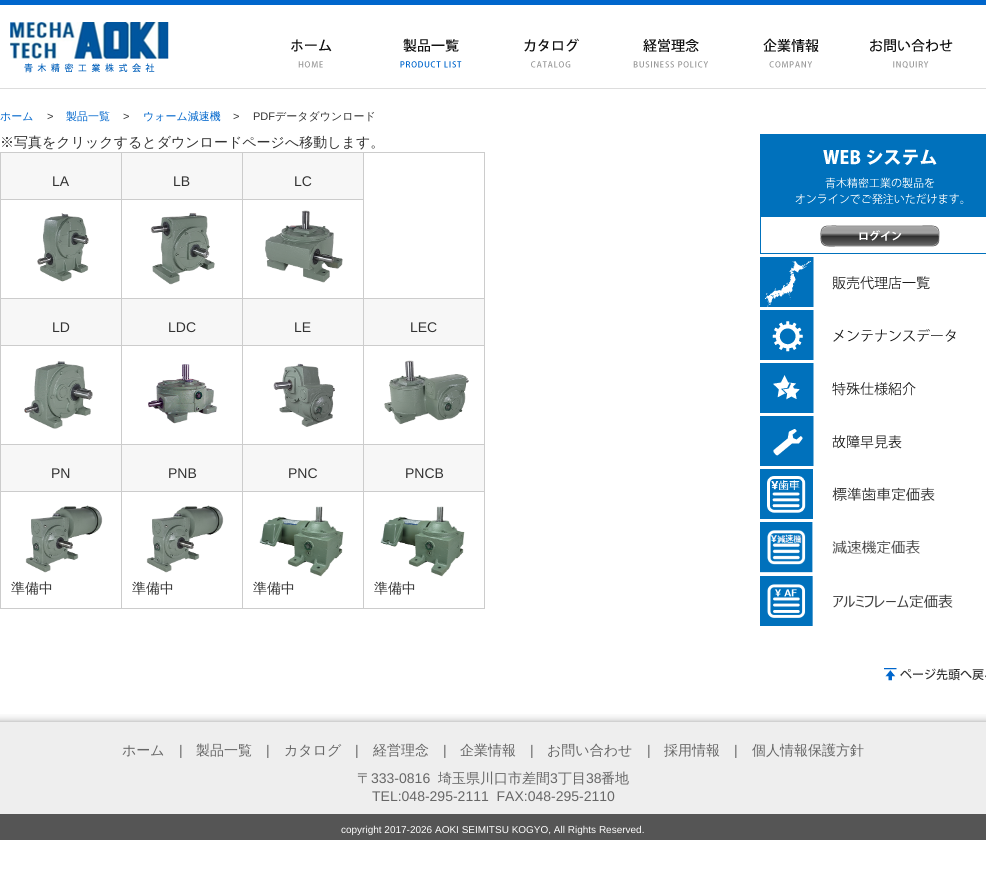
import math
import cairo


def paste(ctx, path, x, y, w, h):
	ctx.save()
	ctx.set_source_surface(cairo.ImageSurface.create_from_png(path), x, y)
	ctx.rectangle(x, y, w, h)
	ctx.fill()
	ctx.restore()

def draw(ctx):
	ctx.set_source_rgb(1, 1, 1)
	ctx.paint()
	ctx.set_source_rgb(0, 0.4, 0.8)
	ctx.rectangle(0, 0, 986, 5)
	ctx.fill()
	ctx.set_source_rgb(0.867, 0.867, 0.867)
	ctx.rectangle(0, 88, 986, 1)
	ctx.fill()
	paste(ctx, 'media/1.png', 10, 22, 159, 51)
	paste(ctx, 'media/2.png', 291, 39, 41, 29)
	paste(ctx, 'media/3.png', 400, 38, 62, 30)
	paste(ctx, 'media/4.png', 524, 38, 55, 30)
	paste(ctx, 'media/5.png', 633, 38, 75, 30)
	paste(ctx, 'media/6.png', 763, 38, 56, 30)
	paste(ctx, 'media/7.png', 870, 39, 83, 30)
	ctx.select_font_face('WenQuanYi Zen Hei Medium')
	ctx.set_font_size(11)
	ctx.set_source_rgb(0, 0.4, 0.8)
	ctx.move_to(0, 120)
	ctx.show_text('ホーム')
	ctx.select_font_face('Liberation Sans')
	ctx.set_source_rgb(0.2, 0.2, 0.2)
	ctx.move_to(47, 120)
	ctx.show_text('>')
	ctx.select_font_face('WenQuanYi Zen Hei Medium')
	ctx.set_source_rgb(0, 0.4, 0.8)
	ctx.move_to(66, 120)
	ctx.show_text('製品一覧')
	ctx.select_font_face('Liberation Sans')
	ctx.set_source_rgb(0.2, 0.2, 0.2)
	ctx.move_to(123, 120)
	ctx.show_text('>')
	ctx.select_font_face('WenQuanYi Zen Hei Medium')
	ctx.set_source_rgb(0, 0.4, 0.8)
	ctx.move_to(143, 120)
	ctx.show_text('ウォーム減速機')
	ctx.select_font_face('Liberation Sans')
	ctx.set_source_rgb(0.2, 0.2, 0.2)
	ctx.move_to(233, 120)
	ctx.show_text('>')
	ctx.move_to(253, 120)
	ctx.show_text('PDF')
	ctx.select_font_face('WenQuanYi Zen Hei Medium')
	ctx.move_to(275, 120)
	ctx.show_text('データダウンロード')
	ctx.set_font_size(14)
	ctx.move_to(0, 147)
	ctx.show_text('※写真をクリックするとダウンロードページへ移動します。')
	ctx.set_source_rgb(0.8, 0.8, 0.8)
	ctx.rectangle(0, 152, 485, 1)
	ctx.rectangle(484, 152, 1, 457)
	ctx.rectangle(0, 608, 485, 1)
	ctx.rectangle(0, 152, 1, 457)
	ctx.rectangle(242, 199, 122, 1)
	ctx.rectangle(363, 298, 122, 1)
	ctx.rectangle(363, 345, 122, 1)
	ctx.rectangle(363, 444, 122, 1)
	ctx.rectangle(363, 491, 122, 1)
	ctx.rectangle(363, 491, 1, 118)
	ctx.rectangle(242, 491, 122, 1)
	ctx.rectangle(363, 444, 1, 48)
	ctx.rectangle(242, 444, 122, 1)
	ctx.rectangle(363, 345, 1, 100)
	ctx.rectangle(242, 345, 122, 1)
	ctx.rectangle(363, 298, 1, 48)
	ctx.rectangle(242, 298, 122, 1)
	ctx.rectangle(242, 491, 1, 118)
	ctx.rectangle(121, 491, 122, 1)
	ctx.rectangle(242, 444, 1, 48)
	ctx.rectangle(121, 444, 122, 1)
	ctx.rectangle(242, 345, 1, 100)
	ctx.rectangle(121, 345, 122, 1)
	ctx.rectangle(242, 298, 1, 48)
	ctx.rectangle(121, 298, 122, 1)
	ctx.rectangle(242, 199, 1, 100)
	ctx.rectangle(121, 199, 122, 1)
	ctx.rectangle(121, 491, 1, 118)
	ctx.rectangle(0, 491, 122, 1)
	ctx.rectangle(121, 444, 1, 48)
	ctx.rectangle(0, 444, 122, 1)
	ctx.rectangle(121, 345, 1, 100)
	ctx.rectangle(0, 345, 122, 1)
	ctx.rectangle(121, 298, 1, 48)
	ctx.rectangle(0, 298, 122, 1)
	ctx.rectangle(121, 199, 1, 100)
	ctx.rectangle(0, 199, 122, 1)
	ctx.fill()
	paste(ctx, 'media/8.png', 37, 213, 52, 69)
	paste(ctx, 'media/9.png', 150, 212, 65, 73)
	ctx.rectangle(363, 152, 1, 147)
	ctx.fill()
	paste(ctx, 'media/10.png', 265, 210, 78, 73)
	ctx.set_source_rgb(0.965, 0.965, 0.965)
	ctx.rectangle(1, 153, 120, 46)
	ctx.fill()
	ctx.select_font_face('Liberation Sans')
	ctx.set_source_rgb(0.2, 0.2, 0.2)
	ctx.move_to(52, 186)
	ctx.show_text('LA')
	ctx.set_source_rgb(0.965, 0.965, 0.965)
	ctx.rectangle(122, 153, 120, 46)
	ctx.fill()
	ctx.set_source_rgb(0.8, 0.8, 0.8)
	ctx.rectangle(121, 152, 1, 48)
	ctx.fill()
	ctx.set_source_rgb(0.2, 0.2, 0.2)
	ctx.move_to(173, 186)
	ctx.show_text('LB')
	ctx.set_source_rgb(0.965, 0.965, 0.965)
	ctx.rectangle(243, 153, 120, 46)
	ctx.fill()
	ctx.set_source_rgb(0.8, 0.8, 0.8)
	ctx.rectangle(242, 152, 1, 48)
	ctx.fill()
	ctx.set_source_rgb(0.2, 0.2, 0.2)
	ctx.move_to(294, 186)
	ctx.show_text('LC')
	ctx.set_source_rgb(0.965, 0.965, 0.965)
	ctx.rectangle(1, 299, 120, 46)
	ctx.fill()
	ctx.set_source_rgb(0.2, 0.2, 0.2)
	ctx.move_to(52, 332)
	ctx.show_text('LD')
	ctx.set_source_rgb(0.965, 0.965, 0.965)
	ctx.rectangle(122, 299, 120, 46)
	ctx.fill()
	ctx.set_source_rgb(0.2, 0.2, 0.2)
	ctx.move_to(168, 332)
	ctx.show_text('LDC')
	ctx.set_source_rgb(0.965, 0.965, 0.965)
	ctx.rectangle(243, 299, 120, 46)
	ctx.fill()
	ctx.set_source_rgb(0.2, 0.2, 0.2)
	ctx.move_to(294, 332)
	ctx.show_text('LE')
	ctx.set_source_rgb(0.965, 0.965, 0.965)
	ctx.rectangle(364, 299, 120, 46)
	ctx.fill()
	ctx.set_source_rgb(0.2, 0.2, 0.2)
	ctx.move_to(410, 332)
	ctx.show_text('LEC')
	paste(ctx, 'media/11.png', 24, 361, 69, 68)
	paste(ctx, 'media/12.png', 148, 364, 70, 60)
	paste(ctx, 'media/13.png', 273, 363, 62, 64)
	paste(ctx, 'media/14.png', 384, 360, 85, 65)
	ctx.set_source_rgb(0.965, 0.965, 0.965)
	ctx.rectangle(1, 445, 120, 46)
	ctx.fill()
	ctx.set_source_rgb(0.2, 0.2, 0.2)
	ctx.move_to(51, 478)
	ctx.show_text('PN')
	ctx.set_source_rgb(0.965, 0.965, 0.965)
	ctx.rectangle(122, 445, 120, 46)
	ctx.fill()
	ctx.set_source_rgb(0.2, 0.2, 0.2)
	ctx.move_to(168, 478)
	ctx.show_text('PNB')
	ctx.set_source_rgb(0.965, 0.965, 0.965)
	ctx.rectangle(243, 445, 120, 46)
	ctx.fill()
	ctx.set_source_rgb(0.2, 0.2, 0.2)
	ctx.move_to(288, 478)
	ctx.show_text('PNC')
	ctx.set_source_rgb(0.965, 0.965, 0.965)
	ctx.rectangle(364, 445, 120, 46)
	ctx.fill()
	ctx.set_source_rgb(0.2, 0.2, 0.2)
	ctx.move_to(405, 478)
	ctx.show_text('PNCB')
	paste(ctx, 'media/15.png', 25, 505, 78, 68)
	ctx.select_font_face('WenQuanYi Zen Hei Medium')
	ctx.move_to(11, 593)
	ctx.show_text('準備中')
	paste(ctx, 'media/15.png', 146, 505, 78, 68)
	ctx.move_to(132, 593)
	ctx.show_text('準備中')
	paste(ctx, 'media/16.png', 259, 506, 85, 71)
	ctx.move_to(253, 593)
	ctx.show_text('準備中')
	paste(ctx, 'media/16.png', 380, 506, 85, 71)
	ctx.move_to(374, 593)
	ctx.show_text('準備中')
	paste(ctx, 'media/17.png', 760, 134, 226, 120)
	paste(ctx, 'media/18.png', 760, 257, 170, 50)
	paste(ctx, 'media/19.png', 760, 310, 196, 50)
	paste(ctx, 'media/20.png', 760, 363, 156, 50)
	paste(ctx, 'media/21.png', 760, 416, 142, 50)
	paste(ctx, 'media/22.png', 760, 469, 175, 50)
	paste(ctx, 'media/23.png', 760, 522, 160, 51)
	paste(ctx, 'media/24.png', 760, 576, 193, 50)
	paste(ctx, 'media/25.png', 884, 668, 102, 13)
	paste(ctx, 'media/26.png', 0, 714, 986, 8)
	ctx.set_source_rgb(0.933, 0.933, 0.933)
	ctx.rectangle(0, 722, 986, 92)
	ctx.fill()
	ctx.set_source_rgb(0.4, 0.4, 0.4)
	ctx.move_to(122, 755)
	ctx.show_text('ホーム')
	ctx.select_font_face('Liberation Sans')
	ctx.move_to(179, 755)
	ctx.show_text('|')
	ctx.select_font_face('WenQuanYi Zen Hei Medium')
	ctx.move_to(196, 755)
	ctx.show_text('製品一覧')
	ctx.select_font_face('Liberation Sans')
	ctx.move_to(266, 755)
	ctx.show_text('|')
	ctx.select_font_face('WenQuanYi Zen Hei Medium')
	ctx.move_to(284, 755)
	ctx.show_text('カタログ')
	ctx.select_font_face('Liberation Sans')
	ctx.move_to(355, 755)
	ctx.show_text('|')
	ctx.select_font_face('WenQuanYi Zen Hei Medium')
	ctx.move_to(373, 755)
	ctx.show_text('経営理念')
	ctx.select_font_face('Liberation Sans')
	ctx.move_to(443, 755)
	ctx.show_text('|')
	ctx.select_font_face('WenQuanYi Zen Hei Medium')
	ctx.move_to(460, 755)
	ctx.show_text('企業情報')
	ctx.select_font_face('Liberation Sans')
	ctx.move_to(530, 755)
	ctx.show_text('|')
	ctx.select_font_face('WenQuanYi Zen Hei Medium')
	ctx.move_to(547, 755)
	ctx.show_text('お問い合わせ')
	ctx.select_font_face('Liberation Sans')
	ctx.move_to(647, 755)
	ctx.show_text('|')
	ctx.select_font_face('WenQuanYi Zen Hei Medium')
	ctx.move_to(664, 755)
	ctx.show_text('採用情報')
	ctx.select_font_face('Liberation Sans')
	ctx.move_to(734, 755)
	ctx.show_text('|')
	ctx.select_font_face('WenQuanYi Zen Hei Medium')
	ctx.move_to(752, 755)
	ctx.show_text('個人情報保護方針')
	ctx.move_to(357, 783)
	ctx.show_text('〒')
	ctx.select_font_face('Liberation Sans')
	ctx.move_to(371, 783)
	ctx.show_text('333-0816')
	ctx.select_font_face('WenQuanYi Zen Hei Medium')
	ctx.move_to(438, 783)
	ctx.show_text('埼玉県川口市差間')
	ctx.select_font_face('Liberation Sans')
	ctx.move_to(550, 783)
	ctx.show_text('3')
	ctx.select_font_face('WenQuanYi Zen Hei Medium')
	ctx.move_to(558, 783)
	ctx.show_text('丁目')
	ctx.select_font_face('Liberation Sans')
	ctx.move_to(586, 783)
	ctx.show_text('38')
	ctx.select_font_face('WenQuanYi Zen Hei Medium')
	ctx.move_to(601, 783)
	ctx.show_text('番地')
	ctx.select_font_face('Liberation Sans')
	ctx.move_to(372, 801)
	ctx.show_text('TEL:048-295-2111  FAX:048-295-2110')
	ctx.set_source_rgb(0.333, 0.333, 0.333)
	ctx.rectangle(0, 814, 986, 26)
	ctx.fill()
	ctx.set_font_size(10)
	ctx.set_source_rgb(1, 1, 1)
	ctx.move_to(341, 833)
	ctx.show_text('copyright 2017-2026 AOKI SEIMITSU KOGYO, All Rights Reserved.')


surface = cairo.ImageSurface(cairo.FORMAT_RGB24, 986, 879)
ctx = cairo.Context(surface)
options = cairo.FontOptions()
options.set_hint_metrics(cairo.HINT_METRICS_OFF)
options.set_hint_style(cairo.HINT_STYLE_NONE)
ctx.set_font_options(options)
ctx.set_miter_limit(4)
draw(ctx)
surface.write_to_png('image.png')
